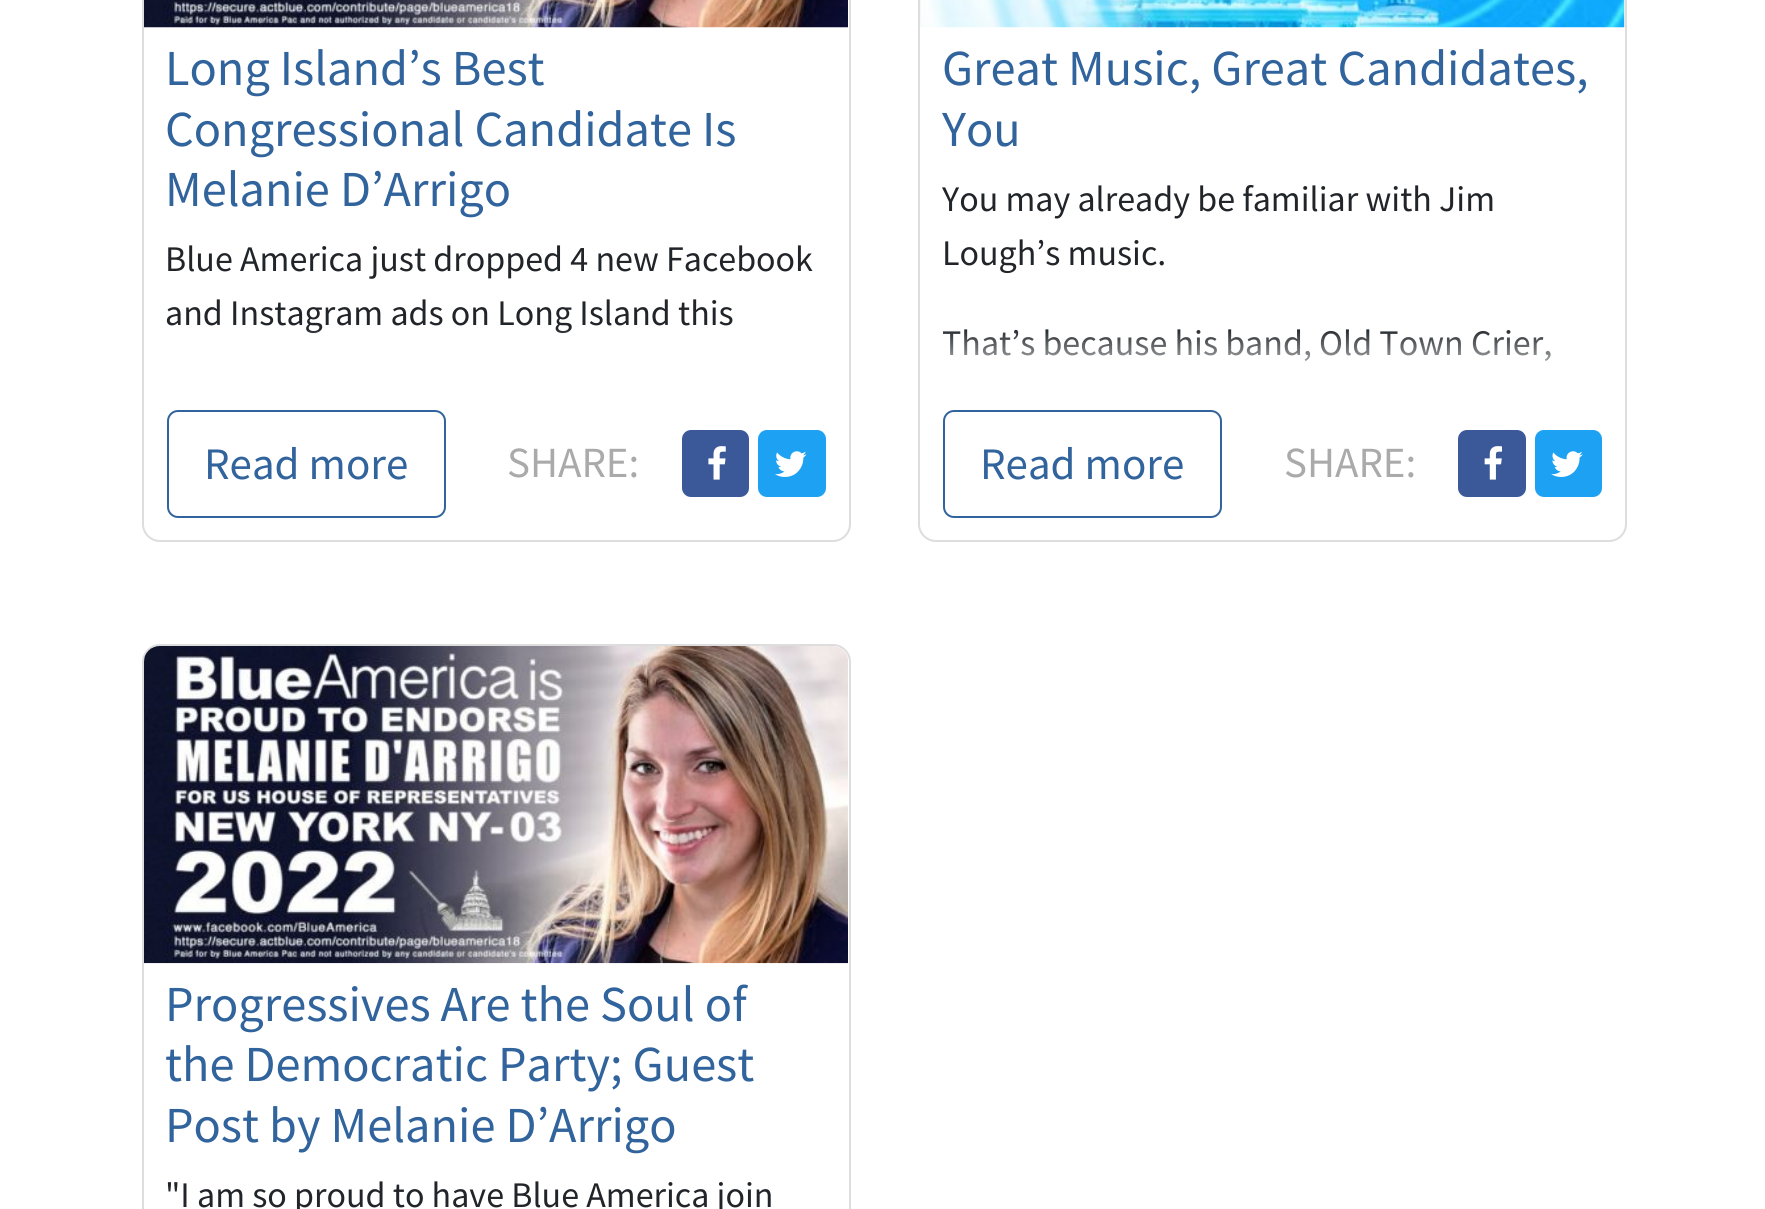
import math
import cairo


def round_path(ctx, x, y, w, h, r):
	ctx.new_sub_path()
	for i, (u, v) in enumerate([(x + w - r, y + h - r), (x + r, y + h - r), (x + r, y + r), (x + w - r, y + r)]):
		ctx.arc(u, v, r, i * math.pi / 2, (i + 1) * math.pi / 2)
	ctx.close_path()

def paste(ctx, path, x, y, w, h):
	ctx.save()
	ctx.set_source_surface(cairo.ImageSurface.create_from_png(path), x, y)
	ctx.rectangle(x, y, w, h)
	ctx.fill()
	ctx.restore()

def draw(ctx):
	ctx.set_source_rgb(1, 1, 1)
	ctx.paint()
	round_path(ctx, 143, -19, 707, 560, 17)
	ctx.set_source_rgb(0.867, 0.867, 0.867)
	ctx.stroke()
	paste(ctx, 'media/1.png', 144, 0, 704, 28)
	ctx.select_font_face('Source Sans Pro')
	ctx.set_font_size(50.4)
	ctx.set_source_rgb(0.192, 0.388, 0.612)
	for x, y, s in [
		(165, 85, 'Long Island’s Best'),
		(165, 146, 'Congressional Candidate Is'),
		(165, 206, 'Melanie D’Arrigo'),
	]:
		ctx.move_to(x, y)
		ctx.show_text(s)
	ctx.set_font_size(36)
	ctx.set_source_rgb(0.129, 0.145, 0.161)
	ctx.move_to(165, 271)
	ctx.show_text('Blue America just dropped 4 new Facebook')
	ctx.move_to(165, 325)
	ctx.show_text('and Instagram ads on Long Island this')
	gradient = cairo.LinearGradient(496, 328, 496, 387)
	gradient.add_color_stop_rgba(0, 1, 1, 1, 0)
	gradient.add_color_stop_rgba(1, 1, 1, 1, 1)
	ctx.set_source(gradient)
	ctx.rectangle(307, 329, 264, 4)
	ctx.fill()
	round_path(ctx, 168, 411, 277, 106, 10)
	ctx.set_source_rgb(0.192, 0.388, 0.612)
	ctx.stroke()
	ctx.set_font_size(45)
	ctx.move_to(204, 479)
	ctx.show_text('Read more')
	ctx.set_font_size(43)
	ctx.set_source_rgb(0.667, 0.667, 0.667)
	ctx.move_to(507, 477)
	ctx.show_text('SHARE:')
	ctx.set_source_rgb(0.231, 0.349, 0.596)
	round_path(ctx, 682, 430, 67, 67, 9)
	ctx.fill()
	paste(ctx, 'media/2.png', 708, 446, 18, 34)
	ctx.set_source_rgb(0.114, 0.631, 0.949)
	round_path(ctx, 758, 430, 68, 67, 9)
	ctx.fill()
	paste(ctx, 'media/3.png', 775, 451, 32, 26)
	round_path(ctx, 919, -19, 707, 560, 17)
	ctx.set_source_rgb(0.867, 0.867, 0.867)
	ctx.stroke()
	ctx.set_source_rgb(0.949, 0.949, 0.949)
	ctx.rectangle(920, 0, 705, 27)
	ctx.fill()
	paste(ctx, 'media/4.png', 920, 0, 705, 28)
	ctx.set_font_size(50.4)
	ctx.set_source_rgb(0.192, 0.388, 0.612)
	ctx.move_to(942, 85)
	ctx.show_text('Great Music, Great Candidates,')
	ctx.move_to(942, 146)
	ctx.show_text('You')
	ctx.set_font_size(36)
	ctx.set_source_rgb(0.129, 0.145, 0.161)
	for x, y, s in [
		(942, 211, 'You may already be familiar with Jim'),
		(942, 265, 'Lough’s music.'),
		(942, 355, 'That’s because his band, Old Town Crier,'),
	]:
		ctx.move_to(x, y)
		ctx.show_text(s)
	gradient = cairo.LinearGradient(1272, 328, 1272, 387)
	gradient.add_color_stop_rgba(0, 1, 1, 1, 0)
	gradient.add_color_stop_rgba(1, 1, 1, 1, 1)
	ctx.set_source(gradient)
	ctx.rectangle(942, 329, 608, 32)
	ctx.fill()
	round_path(ctx, 944, 411, 277, 106, 10)
	ctx.set_source_rgb(0.192, 0.388, 0.612)
	ctx.stroke()
	ctx.set_font_size(45)
	ctx.move_to(980, 479)
	ctx.show_text('Read more')
	ctx.set_font_size(43)
	ctx.set_source_rgb(0.667, 0.667, 0.667)
	ctx.move_to(1284, 477)
	ctx.show_text('SHARE:')
	ctx.set_source_rgb(0.231, 0.349, 0.596)
	round_path(ctx, 1458, 430, 68, 67, 9)
	ctx.fill()
	paste(ctx, 'media/5.png', 1484, 446, 18, 34)
	ctx.set_source_rgb(0.114, 0.631, 0.949)
	round_path(ctx, 1535, 430, 67, 67, 9)
	ctx.fill()
	paste(ctx, 'media/6.png', 1551, 451, 32, 26)
	round_path(ctx, 143, 645, 707, 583, 17)
	ctx.set_source_rgb(0.867, 0.867, 0.867)
	ctx.stroke()
	paste(ctx, 'media/7.png', 144, 646, 704, 318)
	ctx.set_font_size(50.4)
	ctx.set_source_rgb(0.192, 0.388, 0.612)
	for x, y, s in [
		(165, 1021, 'Progressives Are the Soul of'),
		(165, 1081, 'the Democratic Party; Guest'),
		(165, 1142, 'Post by Melanie D’Arrigo'),
	]:
		ctx.move_to(x, y)
		ctx.show_text(s)
	ctx.set_font_size(36)
	ctx.set_source_rgb(0.129, 0.145, 0.161)
	ctx.move_to(165, 1207)
	ctx.show_text('"I am so proud to have Blue America join')


surface = cairo.ImageSurface(cairo.FORMAT_RGB24, 1765, 1209)
ctx = cairo.Context(surface)
options = cairo.FontOptions()
options.set_hint_metrics(cairo.HINT_METRICS_OFF)
options.set_hint_style(cairo.HINT_STYLE_NONE)
ctx.set_font_options(options)
ctx.set_miter_limit(4)
draw(ctx)
surface.write_to_png('image.png')
